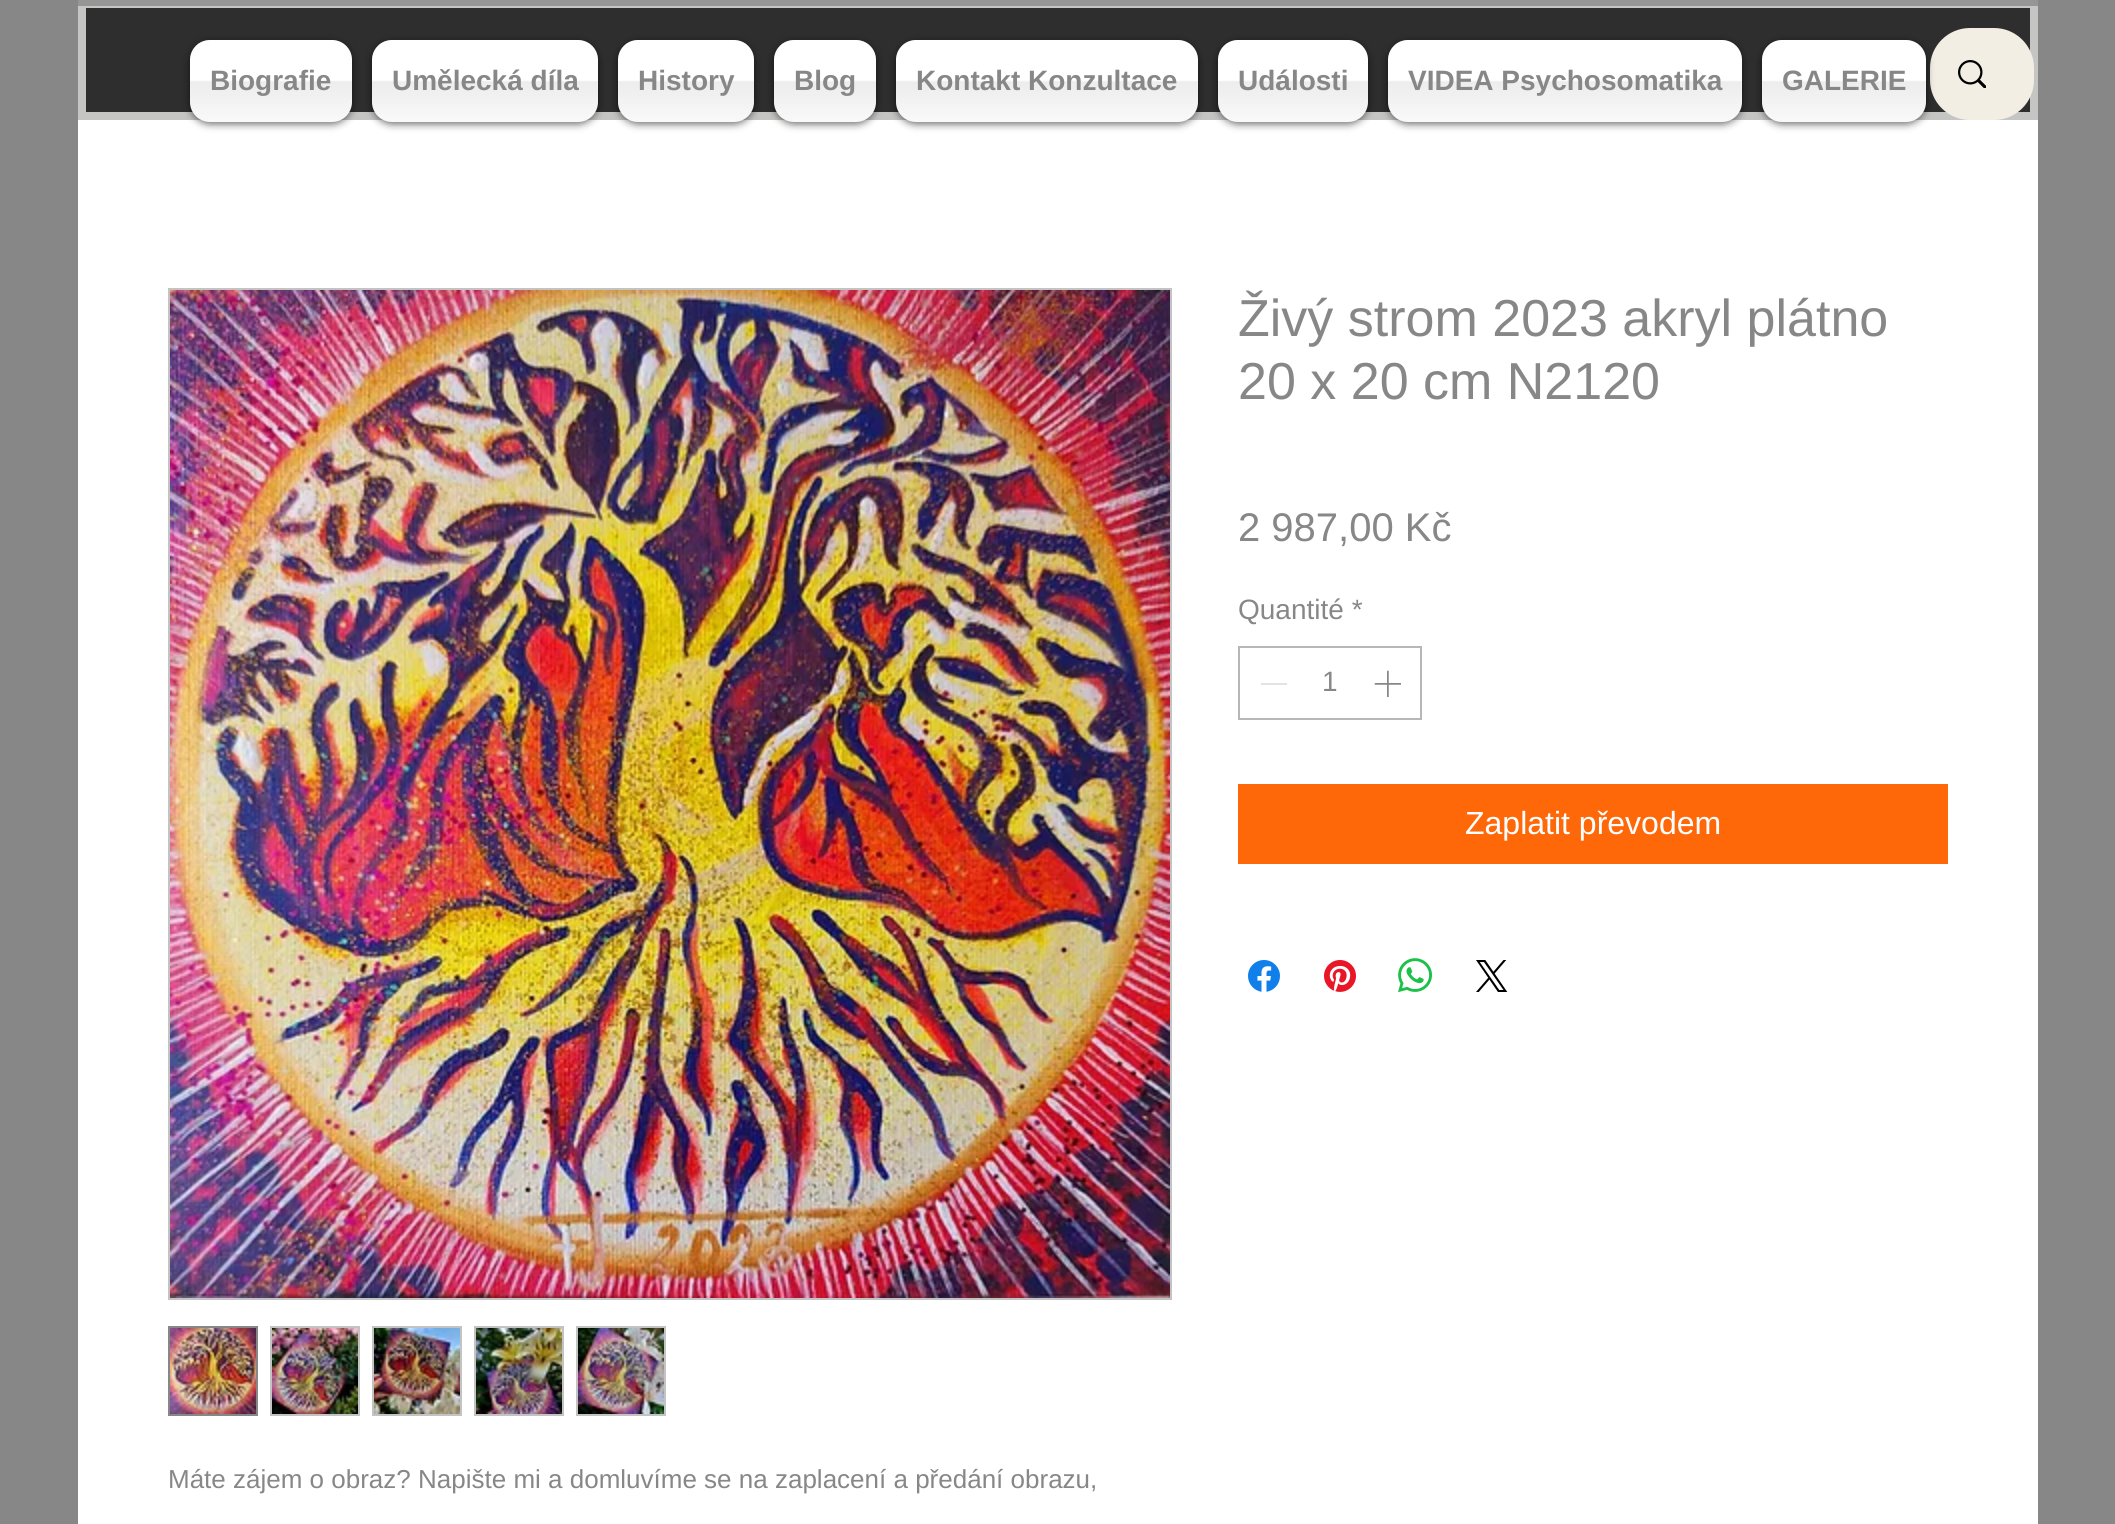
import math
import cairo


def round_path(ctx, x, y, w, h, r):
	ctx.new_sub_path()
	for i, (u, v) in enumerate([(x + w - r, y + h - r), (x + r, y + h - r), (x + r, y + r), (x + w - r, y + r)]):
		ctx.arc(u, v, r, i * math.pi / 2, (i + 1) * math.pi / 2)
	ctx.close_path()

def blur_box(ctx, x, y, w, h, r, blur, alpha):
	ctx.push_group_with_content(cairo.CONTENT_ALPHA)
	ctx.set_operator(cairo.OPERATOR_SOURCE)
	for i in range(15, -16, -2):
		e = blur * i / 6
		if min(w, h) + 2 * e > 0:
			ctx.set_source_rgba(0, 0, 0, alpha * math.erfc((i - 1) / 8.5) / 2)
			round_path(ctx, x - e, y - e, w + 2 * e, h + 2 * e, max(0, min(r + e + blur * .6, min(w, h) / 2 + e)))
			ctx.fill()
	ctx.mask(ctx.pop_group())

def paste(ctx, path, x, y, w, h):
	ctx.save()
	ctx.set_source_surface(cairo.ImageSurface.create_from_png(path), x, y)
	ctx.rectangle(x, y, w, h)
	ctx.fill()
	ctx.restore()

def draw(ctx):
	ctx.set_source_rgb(0.529, 0.529, 0.529)
	ctx.paint()
	ctx.set_source_rgb(0.588, 0.588, 0.588)
	ctx.rectangle(78, 0, 1960, 6)
	ctx.fill()
	ctx.set_source_rgb(0.773, 0.773, 0.769)
	ctx.rectangle(78, 6, 1960, 114)
	ctx.fill()
	ctx.set_source_rgb(0.184, 0.18, 0.18)
	ctx.rectangle(86, 8, 1944, 104)
	ctx.fill()
	ctx.set_source_rgb(0.949, 0.933, 0.894)
	round_path(ctx, 1930, 28, 104, 92, 40)
	ctx.fill()
	paste(ctx, 'media/1.png', 1958, 60, 28, 28)
	ctx.set_source_rgb(1, 1, 1)
	ctx.rectangle(78, 120, 1960, 1404)
	ctx.fill()
	ctx.set_source_rgb(0, 0, 0)
	blur_box(ctx, 190, 42, 162, 82, 20, 4, 0.6)
	ctx.set_source_rgb(1, 1, 1)
	round_path(ctx, 190, 40, 162, 82, 20)
	ctx.fill()
	paste(ctx, 'media/2.png', 190, 40, 162, 82)
	ctx.select_font_face('Liberation Sans', cairo.FONT_SLANT_NORMAL, cairo.FONT_WEIGHT_BOLD)
	ctx.set_font_size(28)
	ctx.set_source_rgb(0.529, 0.529, 0.529)
	ctx.move_to(210, 90)
	ctx.show_text('Biografie')
	ctx.set_source_rgb(0, 0, 0)
	blur_box(ctx, 372, 42, 226, 82, 20, 4, 0.6)
	ctx.set_source_rgb(1, 1, 1)
	round_path(ctx, 372, 40, 226, 82, 20)
	ctx.fill()
	paste(ctx, 'media/3.png', 372, 40, 226, 82)
	ctx.set_source_rgb(0.529, 0.529, 0.529)
	ctx.move_to(392, 90)
	ctx.show_text('Umělecká díla')
	ctx.set_source_rgb(0, 0, 0)
	blur_box(ctx, 618, 42, 136, 82, 20, 4, 0.6)
	ctx.set_source_rgb(1, 1, 1)
	round_path(ctx, 618, 40, 136, 82, 20)
	ctx.fill()
	paste(ctx, 'media/4.png', 618, 40, 136, 82)
	ctx.set_source_rgb(0.529, 0.529, 0.529)
	ctx.move_to(638, 90)
	ctx.show_text('History')
	ctx.set_source_rgb(0, 0, 0)
	blur_box(ctx, 774, 42, 102, 82, 20, 4, 0.6)
	ctx.set_source_rgb(1, 1, 1)
	round_path(ctx, 774, 40, 102, 82, 20)
	ctx.fill()
	paste(ctx, 'media/5.png', 774, 40, 102, 82)
	ctx.set_source_rgb(0.529, 0.529, 0.529)
	ctx.move_to(794, 90)
	ctx.show_text('Blog')
	ctx.set_source_rgb(0, 0, 0)
	blur_box(ctx, 896, 42, 302, 82, 20, 4, 0.6)
	ctx.set_source_rgb(1, 1, 1)
	round_path(ctx, 896, 40, 302, 82, 20)
	ctx.fill()
	paste(ctx, 'media/6.png', 896, 40, 302, 82)
	ctx.set_source_rgb(0.529, 0.529, 0.529)
	ctx.move_to(916, 90)
	ctx.show_text('Kontakt Konzultace')
	ctx.set_source_rgb(0, 0, 0)
	blur_box(ctx, 1218, 42, 150, 82, 20, 4, 0.6)
	ctx.set_source_rgb(1, 1, 1)
	round_path(ctx, 1218, 40, 150, 82, 20)
	ctx.fill()
	paste(ctx, 'media/7.png', 1218, 40, 150, 82)
	ctx.set_source_rgb(0.529, 0.529, 0.529)
	ctx.move_to(1238, 90)
	ctx.show_text('Události')
	ctx.set_source_rgb(0, 0, 0)
	blur_box(ctx, 1388, 42, 354, 82, 20, 4, 0.6)
	ctx.set_source_rgb(1, 1, 1)
	round_path(ctx, 1388, 40, 354, 82, 20)
	ctx.fill()
	paste(ctx, 'media/8.png', 1388, 40, 354, 82)
	ctx.set_source_rgb(0.529, 0.529, 0.529)
	ctx.move_to(1408, 90)
	ctx.show_text('VIDEA Psychosomatika')
	ctx.set_source_rgb(0, 0, 0)
	blur_box(ctx, 1762, 42, 164, 82, 20, 4, 0.6)
	ctx.set_source_rgb(1, 1, 1)
	round_path(ctx, 1762, 40, 164, 82, 20)
	ctx.fill()
	paste(ctx, 'media/9.png', 1762, 40, 164, 82)
	ctx.set_source_rgb(0.529, 0.529, 0.529)
	ctx.move_to(1782, 90)
	ctx.show_text('GALERIE')
	ctx.select_font_face('Liberation Sans')
	ctx.set_font_size(52)
	ctx.move_to(1238, 336)
	ctx.show_text('Živý strom 2023 akryl plátno')
	ctx.move_to(1238, 399)
	ctx.show_text('20 x 20 cm N2120')
	ctx.set_font_size(40)
	ctx.move_to(1238, 541)
	ctx.show_text('2 987,00 Kč')
	ctx.set_font_size(28)
	ctx.move_to(1238, 619)
	ctx.show_text('Quantité *')
	ctx.rectangle(1239, 647, 182, 72)
	ctx.set_source_rgb(0.718, 0.718, 0.718)
	ctx.stroke()
	ctx.set_source_rgb(0.89, 0.89, 0.89)
	ctx.rectangle(1261, 683, 26, 2)
	ctx.fill()
	ctx.set_source_rgb(0.529, 0.529, 0.529)
	ctx.move_to(1322, 691)
	ctx.show_text('1')
	paste(ctx, 'media/10.png', 1374, 670, 27, 27)
	ctx.set_source_rgb(1, 0.408, 0.039)
	ctx.rectangle(1238, 784, 710, 80)
	ctx.fill()
	ctx.set_font_size(32)
	ctx.set_source_rgb(1, 1, 1)
	ctx.move_to(1465, 834)
	ctx.show_text('Zaplatit převodem')
	paste(ctx, 'media/11.png', 1248, 960, 32, 32)
	paste(ctx, 'media/12.png', 1324, 960, 32, 32)
	paste(ctx, 'media/13.png', 1398, 958, 34, 35)
	paste(ctx, 'media/14.png', 1476, 960, 32, 32)
	ctx.rectangle(169, 289, 1002, 1010)
	ctx.set_source_rgb(0.765, 0.765, 0.765)
	ctx.stroke()
	paste(ctx, 'media/15.png', 170, 290, 1000, 1008)
	ctx.rectangle(169, 1327, 88, 88)
	ctx.set_source_rgb(0.529, 0.529, 0.529)
	ctx.stroke()
	paste(ctx, 'media/16.png', 170, 1328, 86, 86)
	ctx.set_source_rgb(0.765, 0.765, 0.765)
	ctx.rectangle(270, 1326, 90, 90)
	ctx.fill()
	paste(ctx, 'media/17.png', 272, 1328, 86, 86)
	ctx.rectangle(372, 1326, 90, 90)
	ctx.fill()
	paste(ctx, 'media/18.png', 374, 1328, 86, 86)
	ctx.rectangle(474, 1326, 90, 90)
	ctx.fill()
	paste(ctx, 'media/19.png', 476, 1328, 86, 86)
	ctx.rectangle(576, 1326, 90, 90)
	ctx.fill()
	paste(ctx, 'media/20.png', 578, 1328, 86, 86)
	ctx.set_font_size(26)
	ctx.set_source_rgb(0.529, 0.529, 0.529)
	ctx.move_to(168, 1488)
	ctx.show_text('Máte zájem o obraz? Napište mi a domluvíme se na zaplacení a předání obrazu,')


surface = cairo.ImageSurface(cairo.FORMAT_RGB24, 2115, 1524)
ctx = cairo.Context(surface)
options = cairo.FontOptions()
options.set_hint_metrics(cairo.HINT_METRICS_OFF)
options.set_hint_style(cairo.HINT_STYLE_NONE)
ctx.set_font_options(options)
ctx.set_miter_limit(4)
draw(ctx)
surface.write_to_png('image.png')
